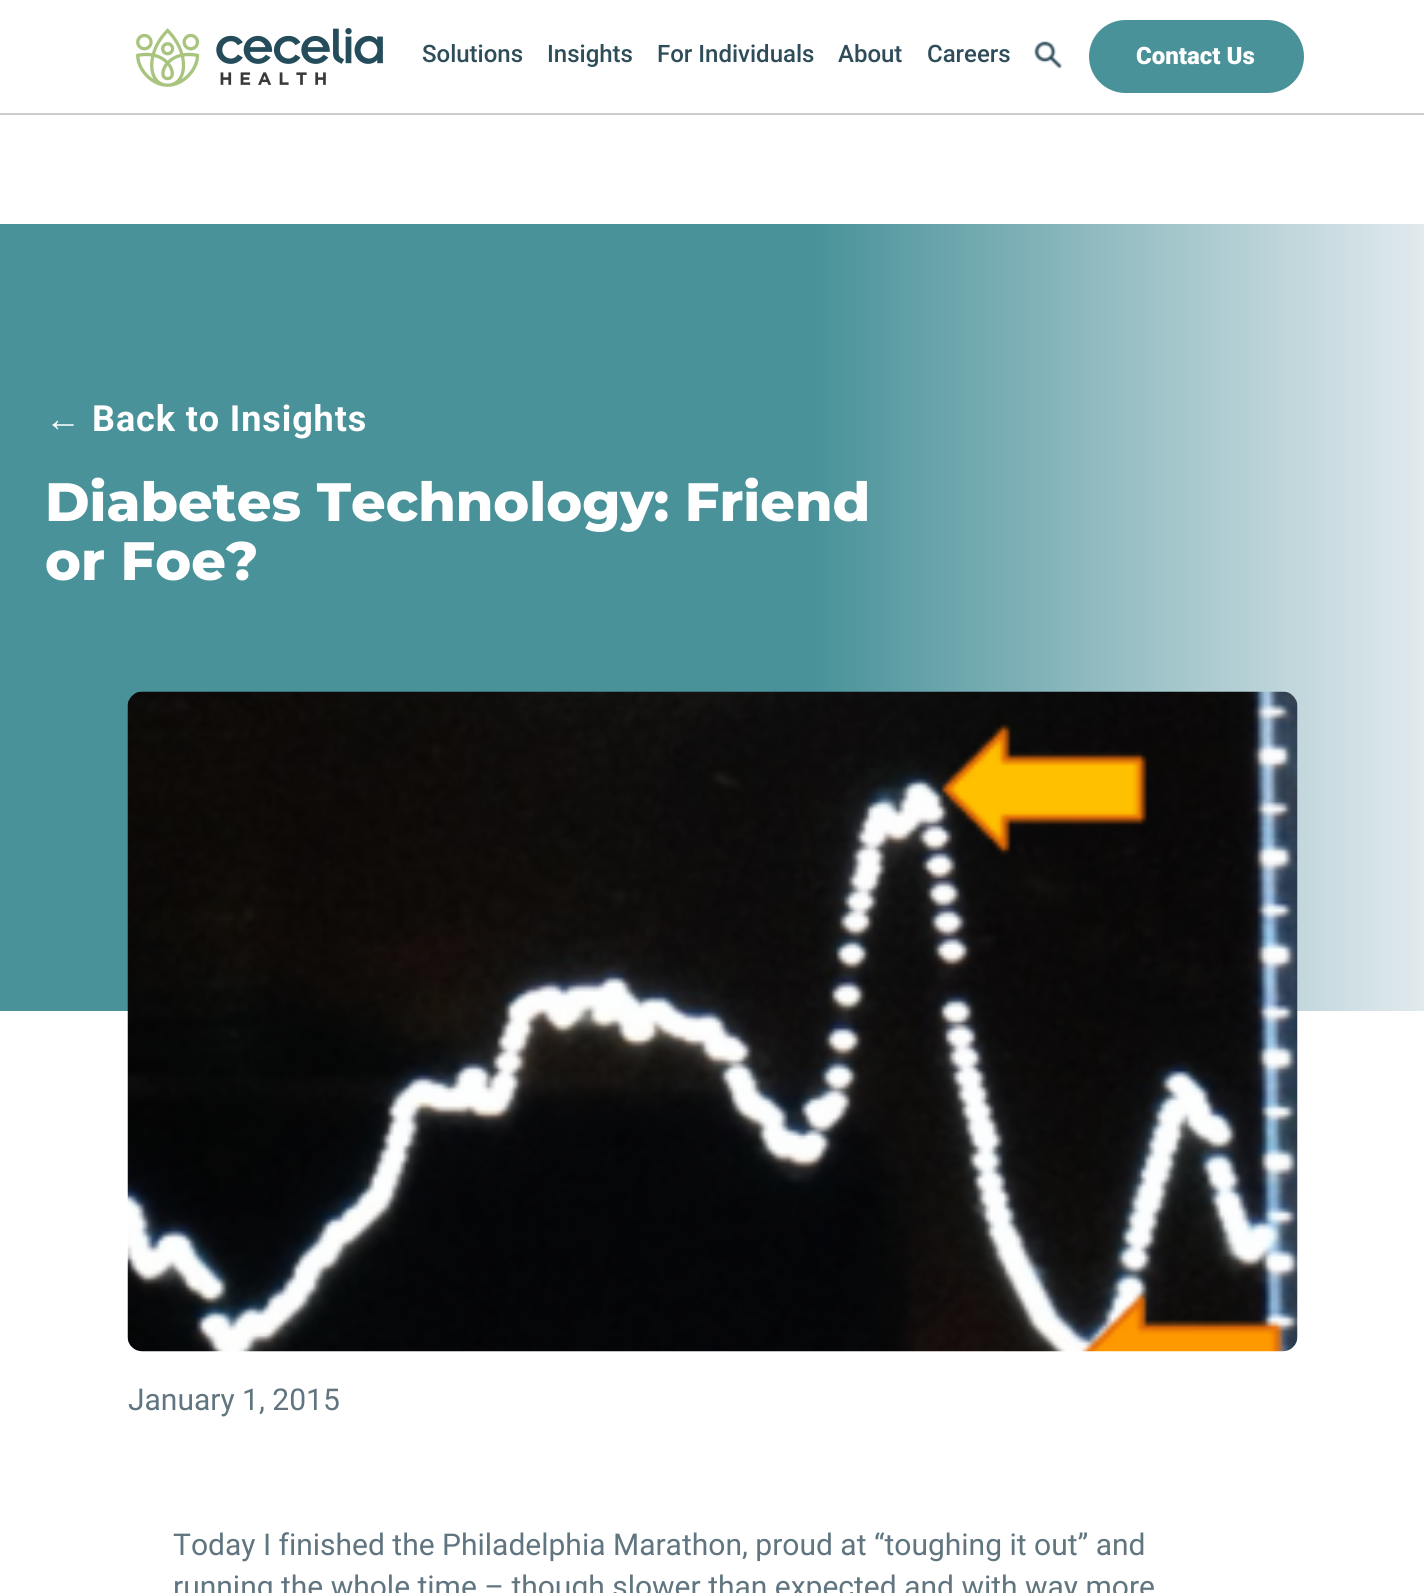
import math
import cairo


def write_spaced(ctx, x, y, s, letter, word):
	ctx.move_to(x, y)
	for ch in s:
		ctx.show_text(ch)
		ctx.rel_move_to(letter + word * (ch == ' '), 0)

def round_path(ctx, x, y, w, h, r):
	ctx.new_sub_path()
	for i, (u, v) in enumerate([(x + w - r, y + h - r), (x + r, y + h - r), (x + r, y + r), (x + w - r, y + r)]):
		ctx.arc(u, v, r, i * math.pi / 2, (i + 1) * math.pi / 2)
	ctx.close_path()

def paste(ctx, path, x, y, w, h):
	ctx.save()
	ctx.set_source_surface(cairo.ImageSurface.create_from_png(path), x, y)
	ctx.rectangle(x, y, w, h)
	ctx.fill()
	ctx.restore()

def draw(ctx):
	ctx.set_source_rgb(1, 1, 1)
	ctx.paint()
	ctx.set_source_rgb(0.8, 0.8, 0.8)
	ctx.rectangle(0, 113, 1424, 2)
	ctx.fill()
	paste(ctx, 'media/1.png', 136, 28, 247, 59)
	ctx.select_font_face('Roboto Medium')
	ctx.set_font_size(24)
	ctx.set_source_rgb(0.18, 0.298, 0.349)
	for x, y, s in [
		(422, 62, 'Solutions'),
		(547, 62, 'Insights'),
		(657, 62, 'For Individuals'),
		(838, 62, 'About'),
		(927, 62, 'Careers'),
	]:
		ctx.move_to(x, y)
		ctx.show_text(s)
	paste(ctx, 'media/2.png', 1034, 41, 28, 28)
	ctx.set_source_rgb(0.286, 0.573, 0.6)
	round_path(ctx, 1089, 20, 215, 73, 36.5)
	ctx.fill()
	ctx.select_font_face('Roboto Black')
	ctx.set_source_rgb(1, 1, 1)
	ctx.move_to(1136, 64)
	ctx.show_text('Contact Us')
	gradient = cairo.LinearGradient(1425, 617, 0, 617)
	gradient.add_color_stop_rgba(0, 0.886, 0.918, 0.933, 1)
	gradient.add_color_stop_rgba(0.43, 0.286, 0.573, 0.6, 1)
	gradient.add_color_stop_rgba(1, 0.286, 0.573, 0.6, 1)
	ctx.set_source(gradient)
	ctx.rectangle(0, 224, 1424, 787)
	ctx.fill()
	ctx.select_font_face('Liberation Sans', cairo.FONT_SLANT_NORMAL, cairo.FONT_WEIGHT_BOLD)
	ctx.set_font_size(36)
	ctx.set_source_rgb(1, 1, 1)
	write_spaced(ctx, 45, 431, '←', 0.9, 0)
	ctx.select_font_face('Roboto', cairo.FONT_SLANT_NORMAL, cairo.FONT_WEIGHT_BOLD)
	write_spaced(ctx, 92, 431, 'Back to Insights', 0.9, 0)
	ctx.select_font_face('Montserrat ExtraBold')
	ctx.set_font_size(54)
	ctx.move_to(45, 521)
	ctx.show_text('Diabetes Technology: Friend')
	ctx.move_to(45, 580)
	ctx.show_text('or Foe?')
	paste(ctx, 'media/3.png', 127, 691, 1171, 661)
	ctx.select_font_face('Roboto')
	ctx.set_font_size(30)
	ctx.set_source_rgb(0.376, 0.459, 0.498)
	for x, y, s in [
		(128, 1410, 'January 1, 2015'),
		(173, 1555, 'Today I finished the Philadelphia Marathon, proud at “toughing it out” and'),
		(173, 1597, 'running the whole time – though slower than expected and with way more'),
	]:
		ctx.move_to(x, y)
		ctx.show_text(s)


surface = cairo.ImageSurface(cairo.FORMAT_RGB24, 1424, 1593)
ctx = cairo.Context(surface)
options = cairo.FontOptions()
options.set_hint_metrics(cairo.HINT_METRICS_OFF)
options.set_hint_style(cairo.HINT_STYLE_NONE)
ctx.set_font_options(options)
ctx.set_miter_limit(4)
draw(ctx)
surface.write_to_png('image.png')
